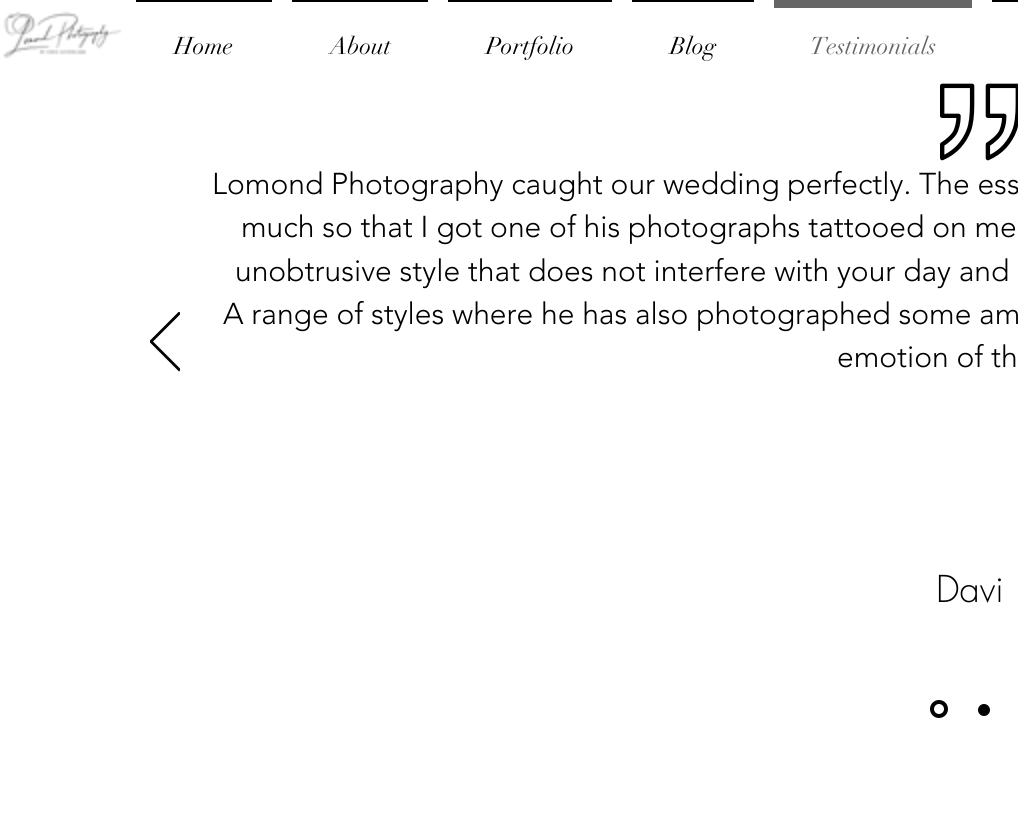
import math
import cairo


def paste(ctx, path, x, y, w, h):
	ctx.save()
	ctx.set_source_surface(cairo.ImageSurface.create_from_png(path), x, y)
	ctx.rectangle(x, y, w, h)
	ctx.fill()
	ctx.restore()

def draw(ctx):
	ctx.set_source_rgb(1, 1, 1)
	ctx.paint()
	paste(ctx, 'media/1.png', 3, 11, 119, 48)
	ctx.set_source_rgb(0, 0, 0)
	ctx.rectangle(992, 0, 26, 2)
	ctx.fill()
	ctx.rectangle(136, 0, 136, 2)
	ctx.fill()
	ctx.select_font_face('didot')
	ctx.set_font_size(24)
	ctx.move_to(174, 54)
	ctx.show_text('Home')
	ctx.rectangle(292, 0, 136, 2)
	ctx.fill()
	ctx.move_to(330, 54)
	ctx.show_text('About')
	ctx.rectangle(448, 0, 164, 2)
	ctx.fill()
	ctx.move_to(486, 54)
	ctx.show_text('Portfolio')
	ctx.rectangle(632, 0, 122, 2)
	ctx.fill()
	ctx.move_to(670, 54)
	ctx.show_text('Blog')
	ctx.set_source_rgb(0.4, 0.4, 0.4)
	ctx.rectangle(774, 0, 198, 8)
	ctx.fill()
	ctx.move_to(810, 54)
	ctx.show_text('Testimonials')
	ctx.save()
	ctx.rectangle(150, 312, 30, 60)
	ctx.clip()
	ctx.new_path()
	ctx.move_to(179, 370.5)
	ctx.line_to(150, 341.5)
	ctx.line_to(179, 312.5)
	ctx.line_to(180, 313.5)
	ctx.line_to(152, 341.5)
	ctx.line_to(180, 369.5)
	ctx.close_path()
	ctx.set_source_rgb(0, 0, 0)
	ctx.set_line_width(1.4)
	ctx.stroke()
	ctx.restore()
	paste(ctx, 'media/2.png', 940, 83, 78, 78)
	ctx.select_font_face('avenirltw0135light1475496 Light')
	ctx.set_font_size(30)
	ctx.set_source_rgb(0, 0, 0)
	for x, y, s in [
		(212, 194, 'Lomond Photography caught our wedding perfectly. The ess'),
		(241, 237, 'much so that I got one of his photographs tattooed on me'),
		(235, 281, 'unobtrusive style that does not interfere with your day and'),
		(223, 324, 'A range of styles where he has also photographed some am'),
		(837, 367, 'emotion of th'),
	]:
		ctx.move_to(x, y)
		ctx.show_text(s)
	ctx.select_font_face('futura Light')
	ctx.set_font_size(36)
	ctx.move_to(936, 602)
	ctx.show_text('Davi')
	ctx.new_path()
	ctx.arc(939, 709, 7, 0, 2 * math.pi)
	ctx.set_line_width(4)
	ctx.stroke()
	ctx.arc(984, 710, 6, 0, 2 * math.pi)
	ctx.fill()


surface = cairo.ImageSurface(cairo.FORMAT_RGB24, 1018, 833)
ctx = cairo.Context(surface)
options = cairo.FontOptions()
options.set_hint_metrics(cairo.HINT_METRICS_OFF)
options.set_hint_style(cairo.HINT_STYLE_NONE)
ctx.set_font_options(options)
ctx.set_miter_limit(4)
draw(ctx)
surface.write_to_png('image.png')
